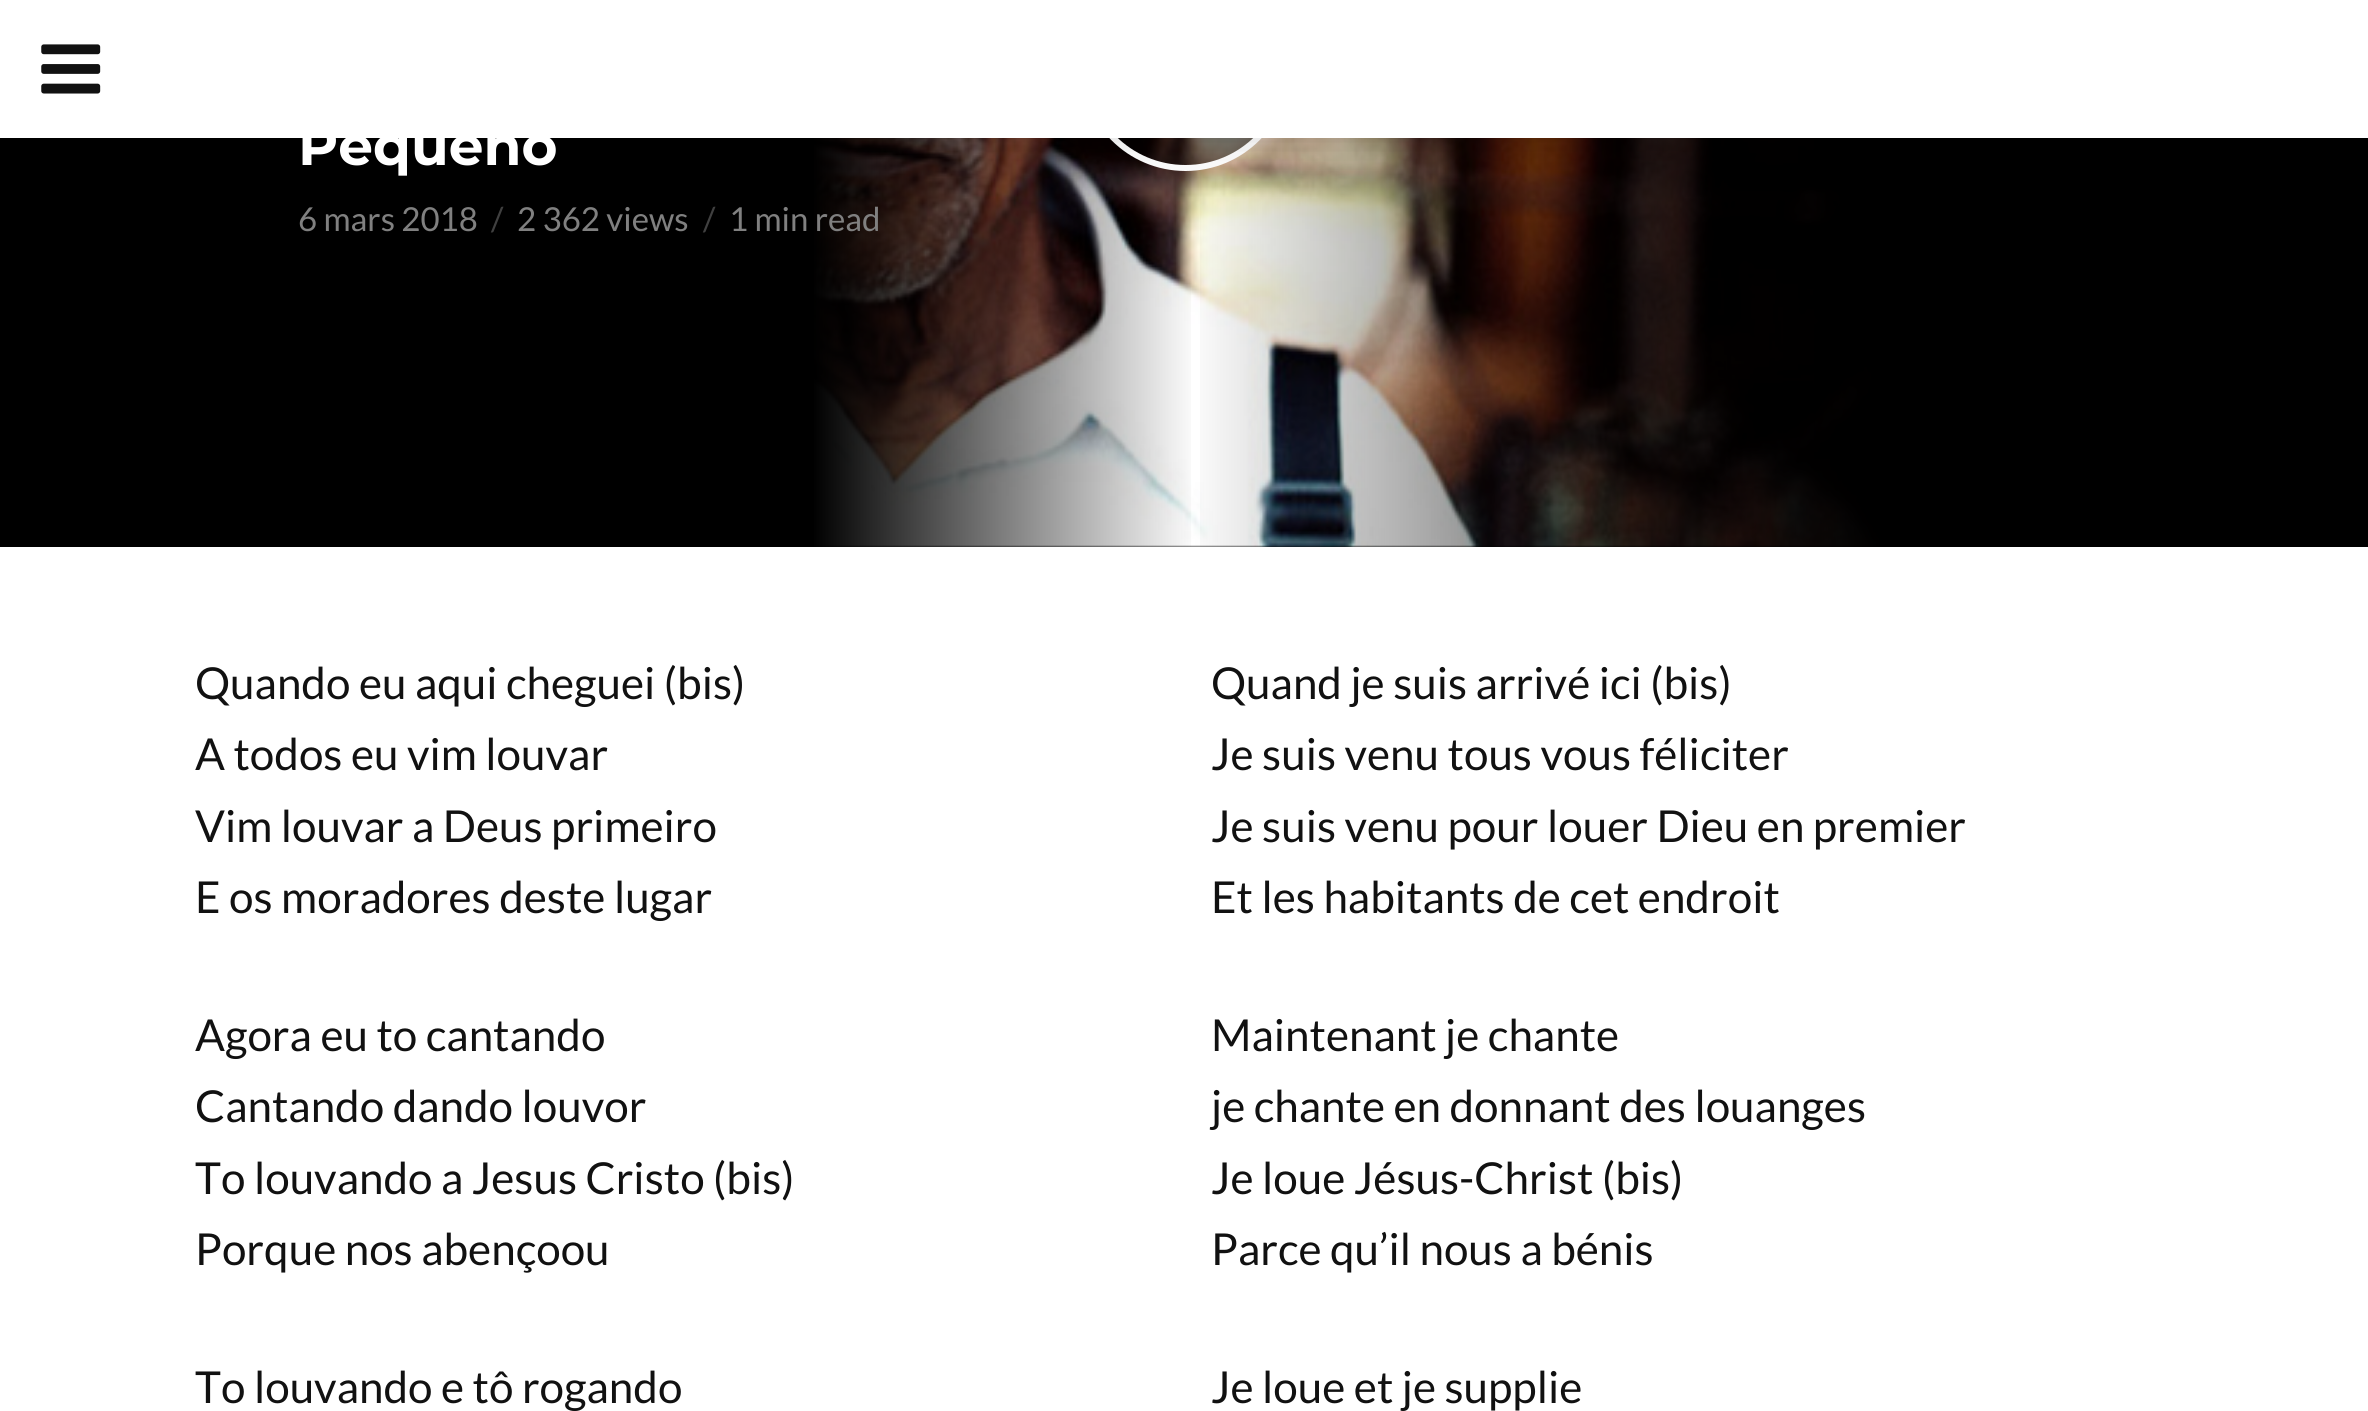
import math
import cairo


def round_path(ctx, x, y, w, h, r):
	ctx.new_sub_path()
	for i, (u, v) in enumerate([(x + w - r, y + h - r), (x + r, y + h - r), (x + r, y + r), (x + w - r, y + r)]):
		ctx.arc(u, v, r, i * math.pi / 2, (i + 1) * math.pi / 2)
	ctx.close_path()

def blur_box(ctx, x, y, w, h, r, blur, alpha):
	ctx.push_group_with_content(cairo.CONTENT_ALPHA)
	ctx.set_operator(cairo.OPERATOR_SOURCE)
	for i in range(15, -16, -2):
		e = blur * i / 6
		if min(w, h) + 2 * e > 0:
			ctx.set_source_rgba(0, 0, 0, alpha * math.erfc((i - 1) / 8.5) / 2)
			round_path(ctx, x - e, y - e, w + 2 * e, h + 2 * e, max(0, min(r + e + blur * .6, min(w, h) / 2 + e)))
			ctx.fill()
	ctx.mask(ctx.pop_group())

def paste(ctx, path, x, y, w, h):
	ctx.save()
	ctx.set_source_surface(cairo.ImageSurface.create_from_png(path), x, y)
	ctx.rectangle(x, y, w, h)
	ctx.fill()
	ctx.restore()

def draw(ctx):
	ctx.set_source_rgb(1, 1, 1)
	ctx.paint()
	ctx.set_source_rgb(0, 0, 0)
	ctx.rectangle(0, 138, 2368, 409)
	ctx.fill()
	paste(ctx, 'media/2.png', 814, 138, 1085, 409)
	gradient = cairo.LinearGradient(468, 66, 1328, 66)
	gradient.add_color_stop_rgba(0, 0, 0, 0, 1)
	gradient.add_color_stop_rgba(0.4, 0, 0, 0, 1)
	gradient.add_color_stop_rgba(0.85, 0, 0, 0, 0)
	ctx.set_source(gradient)
	ctx.rectangle(814, 138, 377, 409)
	ctx.fill()
	gradient = cairo.LinearGradient(1185, 66, 1903, 66)
	gradient.add_color_stop_rgba(0, 0, 0, 0, 0)
	gradient.add_color_stop_rgba(1, 0, 0, 0, 1)
	ctx.set_source(gradient)
	ctx.rectangle(1200, 138, 699, 409)
	ctx.fill()
	ctx.set_source_rgba(0, 0, 0, 0.5)
	ctx.arc(1185.5, 66.5, 101.5, 0, 2 * math.pi)
	ctx.fill_preserve()
	ctx.set_source_rgb(1, 1, 1)
	ctx.set_line_width(6)
	ctx.stroke()
	ctx.set_source_rgb(0, 0, 0)
	blur_box(ctx, 0, 0, 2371, 138, 0, 27.5, 0.15)
	ctx.set_source_rgb(1, 1, 1)
	ctx.rectangle(0, 0, 2368, 138)
	ctx.fill()
	paste(ctx, 'media/1.png', 41, 44, 60, 50)
	ctx.select_font_face('Montserrat', cairo.FONT_SLANT_NORMAL, cairo.FONT_WEIGHT_BOLD)
	ctx.set_font_size(55)
	ctx.move_to(298, 165)
	ctx.show_text('Pequeno')
	ctx.select_font_face('Lato')
	ctx.set_font_size(33)
	ctx.set_source_rgb(0.502, 0.502, 0.502)
	ctx.move_to(298, 231)
	ctx.show_text('6 mars 2018')
	ctx.set_source_rgb(0.251, 0.251, 0.251)
	ctx.move_to(491, 231)
	ctx.show_text('/')
	ctx.set_source_rgb(0.502, 0.502, 0.502)
	ctx.move_to(517, 231)
	ctx.show_text('2 362 views')
	ctx.set_source_rgb(0.251, 0.251, 0.251)
	ctx.move_to(703, 231)
	ctx.show_text('/')
	ctx.set_source_rgb(0.502, 0.502, 0.502)
	ctx.move_to(729, 231)
	ctx.show_text('1 min read')
	ctx.set_font_size(44)
	ctx.set_source_rgb(0.067, 0.067, 0.067)
	for x, y, s in [
		(195, 699, 'Quando eu aqui cheguei (bis)'),
		(195, 770, 'A todos eu vim louvar'),
		(195, 842, 'Vim louvar a Deus primeiro'),
		(195, 913, 'E os moradores deste lugar'),
		(195, 1051, 'Agora eu to cantando'),
		(195, 1122, 'Cantando dando louvor'),
		(195, 1194, 'To louvando a Jesus Cristo (bis)'),
		(195, 1265, 'Porque nos abençoou'),
		(195, 1403, 'To louvando e tô rogando'),
		(1211, 699, 'Quand je suis arrivé ici (bis)'),
		(1211, 770, 'Je suis venu tous vous féliciter'),
		(1211, 842, 'Je suis venu pour louer Dieu en premier'),
		(1211, 913, 'Et les habitants de cet endroit'),
		(1211, 1051, 'Maintenant je chante'),
		(1211, 1122, 'je chante en donnant des louanges'),
		(1211, 1194, 'Je loue Jésus-Christ (bis)'),
		(1211, 1265, 'Parce qu’il nous a bénis'),
		(1211, 1403, 'Je loue et je supplie'),
	]:
		ctx.move_to(x, y)
		ctx.show_text(s)


surface = cairo.ImageSurface(cairo.FORMAT_RGB24, 2368, 1411)
ctx = cairo.Context(surface)
options = cairo.FontOptions()
options.set_hint_metrics(cairo.HINT_METRICS_OFF)
options.set_hint_style(cairo.HINT_STYLE_NONE)
ctx.set_font_options(options)
ctx.set_miter_limit(4)
draw(ctx)
surface.write_to_png('image.png')
